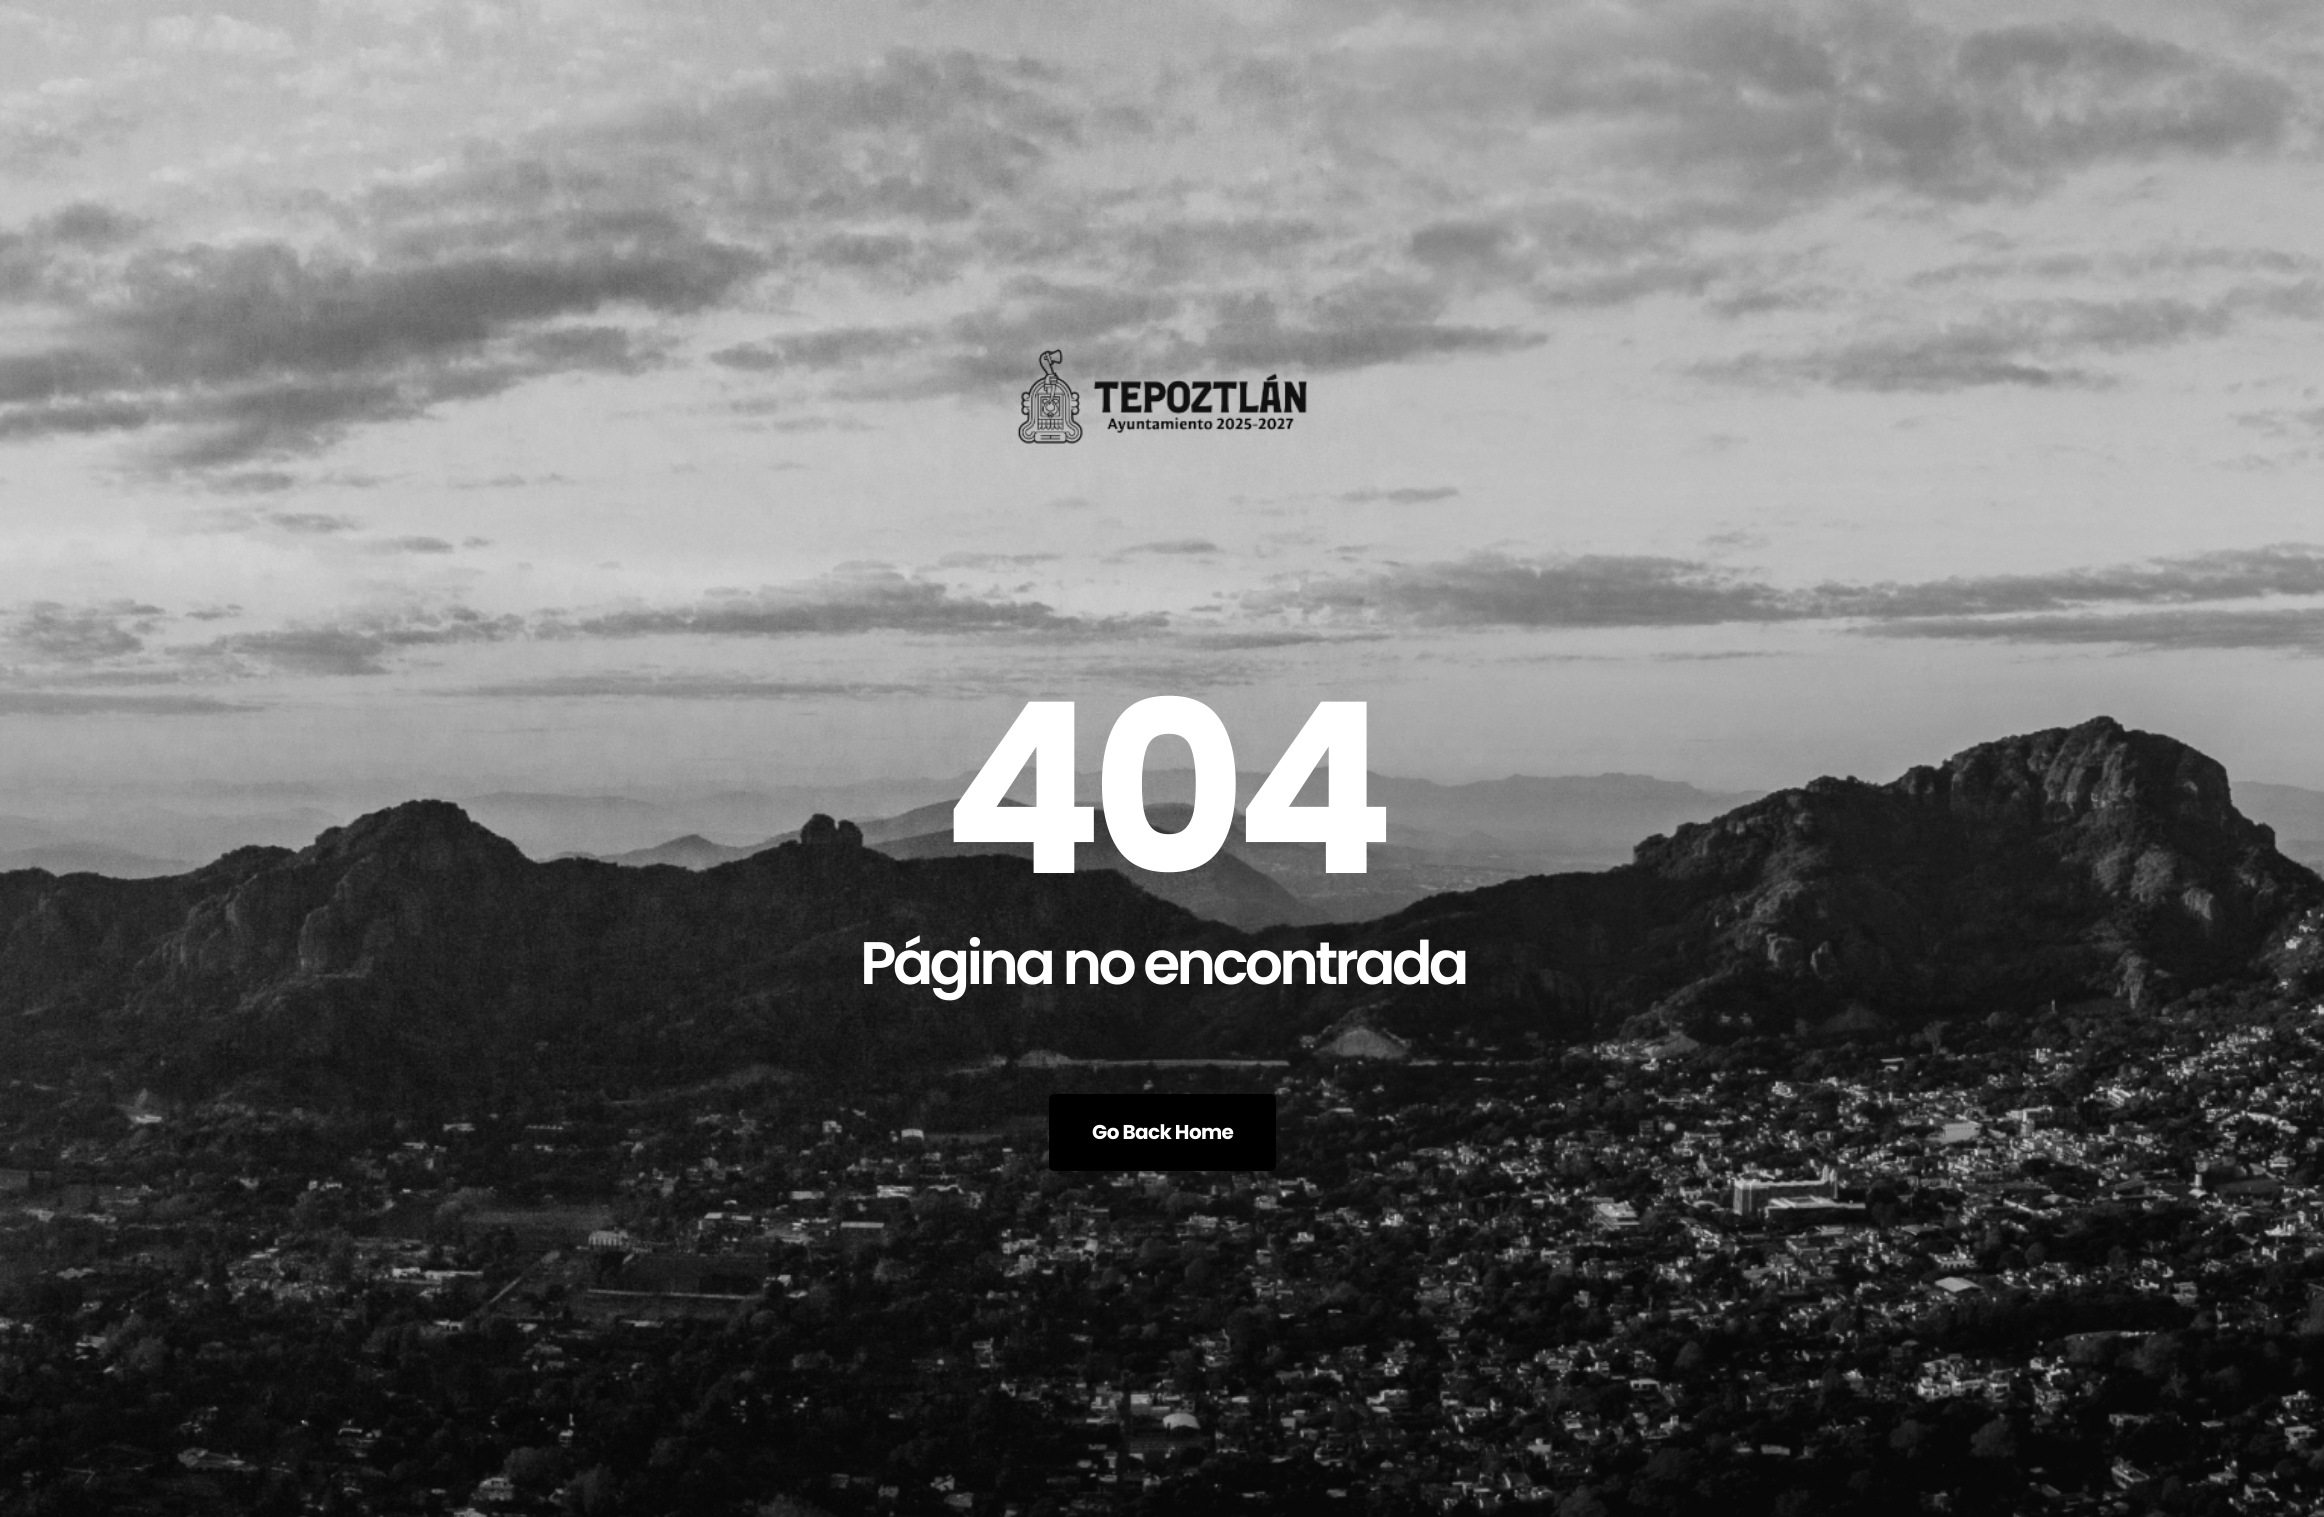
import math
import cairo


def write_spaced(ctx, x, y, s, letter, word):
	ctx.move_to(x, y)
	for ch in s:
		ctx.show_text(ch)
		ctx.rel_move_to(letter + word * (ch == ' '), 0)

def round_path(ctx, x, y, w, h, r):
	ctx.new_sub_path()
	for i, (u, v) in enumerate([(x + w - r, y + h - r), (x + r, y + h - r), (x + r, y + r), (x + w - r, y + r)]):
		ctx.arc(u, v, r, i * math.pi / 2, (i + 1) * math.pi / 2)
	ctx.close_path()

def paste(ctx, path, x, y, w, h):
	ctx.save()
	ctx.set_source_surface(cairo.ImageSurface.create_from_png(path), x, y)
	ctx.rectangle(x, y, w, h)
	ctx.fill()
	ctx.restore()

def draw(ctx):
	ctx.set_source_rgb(1, 1, 1)
	ctx.paint()
	paste(ctx, 'media/1.png', 0, 0, 2324, 1517)
	paste(ctx, 'media/2.png', 1017, 348, 291, 96)
	ctx.select_font_face('Poppins', cairo.FONT_SLANT_NORMAL, cairo.FONT_WEIGHT_BOLD)
	ctx.set_font_size(238)
	ctx.set_source_rgb(1, 1, 1)
	write_spaced(ctx, 942, 873, '404', -12, 0)
	ctx.select_font_face('Poppins SemiBold')
	ctx.set_font_size(60)
	write_spaced(ctx, 860, 984, 'Página no encontrada', -3.8, 0)
	ctx.set_source_rgb(0, 0, 0)
	round_path(ctx, 1049, 1094, 227, 77, 5)
	ctx.fill()
	ctx.select_font_face('Poppins', cairo.FONT_SLANT_NORMAL, cairo.FONT_WEIGHT_BOLD)
	ctx.set_font_size(20)
	ctx.set_source_rgb(1, 1, 1)
	write_spaced(ctx, 1092, 1139, 'Go Back Home', -0.6, 0)


surface = cairo.ImageSurface(cairo.FORMAT_RGB24, 2324, 1517)
ctx = cairo.Context(surface)
options = cairo.FontOptions()
options.set_hint_metrics(cairo.HINT_METRICS_OFF)
options.set_hint_style(cairo.HINT_STYLE_NONE)
ctx.set_font_options(options)
ctx.set_miter_limit(4)
draw(ctx)
surface.write_to_png('image.png')
